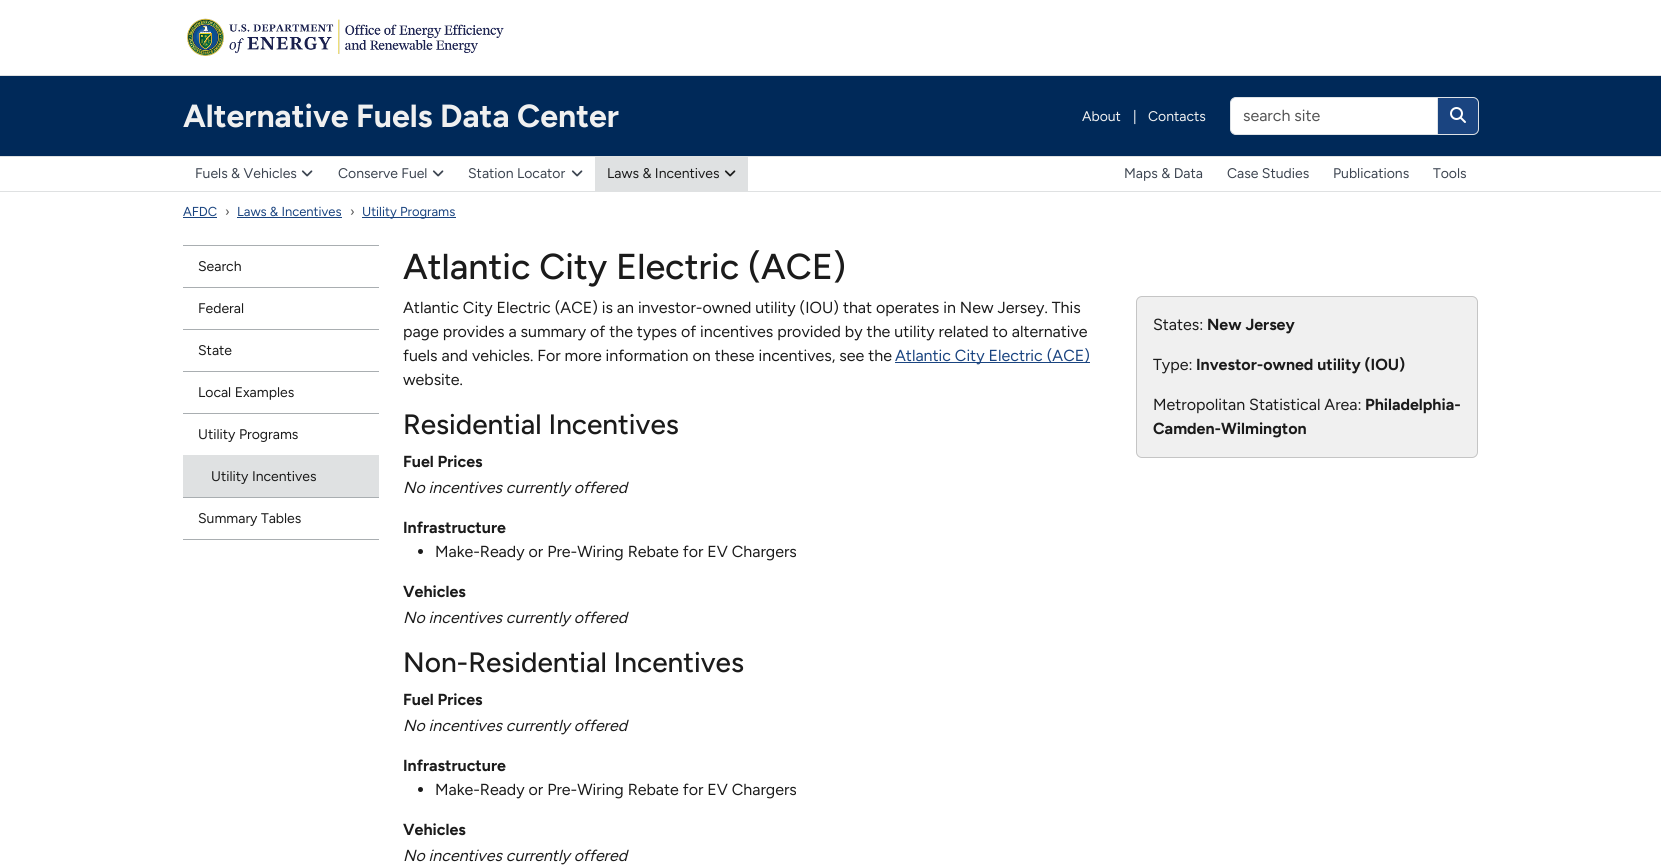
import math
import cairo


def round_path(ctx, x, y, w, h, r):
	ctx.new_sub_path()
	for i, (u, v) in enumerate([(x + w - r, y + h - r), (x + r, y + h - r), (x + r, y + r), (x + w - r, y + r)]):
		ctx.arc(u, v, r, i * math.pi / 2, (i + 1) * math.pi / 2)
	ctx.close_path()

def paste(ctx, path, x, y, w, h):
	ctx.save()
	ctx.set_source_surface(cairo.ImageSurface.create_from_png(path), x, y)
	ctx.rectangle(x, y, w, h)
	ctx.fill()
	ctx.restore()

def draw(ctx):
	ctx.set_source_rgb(1, 1, 1)
	ctx.paint()
	paste(ctx, 'media/1.png', 187, 18, 317, 38)
	ctx.set_source_rgb(0, 0.161, 0.349)
	ctx.rectangle(0, 76, 1661, 80)
	ctx.fill()
	ctx.set_source_rgb(0.875, 0.882, 0.886)
	ctx.rectangle(0, 75, 1661, 1)
	ctx.rectangle(0, 156, 1661, 1)
	ctx.fill()
	ctx.select_font_face('Figtree', cairo.FONT_SLANT_NORMAL, cairo.FONT_WEIGHT_BOLD)
	ctx.set_font_size(32)
	ctx.set_source_rgb(0.941, 0.941, 0.941)
	ctx.move_to(183, 127)
	ctx.show_text('Alternative Fuels Data Center')
	ctx.select_font_face('Figtree')
	ctx.set_font_size(14)
	ctx.move_to(1082, 121)
	ctx.show_text('About')
	ctx.set_source_rgb(1, 1, 1)
	ctx.move_to(1133, 121)
	ctx.show_text('|')
	ctx.set_source_rgb(0.941, 0.941, 0.941)
	ctx.move_to(1148, 121)
	ctx.show_text('Contacts')
	ctx.set_source_rgb(1, 1, 1)
	ctx.new_path()
	ctx.move_to(1236, 97.5)
	ctx.line_to(1437.5, 97.5)
	ctx.line_to(1437.5, 134.5)
	ctx.line_to(1236, 134.5)
	ctx.curve_to(1233, 134.5, 1230.5, 132, 1230.5, 129)
	ctx.line_to(1230.5, 103)
	ctx.curve_to(1230.5, 100, 1233, 97.5, 1236, 97.5)
	ctx.close_path()
	ctx.fill_preserve()
	ctx.set_source_rgb(0.871, 0.886, 0.902)
	ctx.set_line_width(1)
	ctx.stroke()
	ctx.set_font_size(16)
	ctx.set_source_rgb(0.329, 0.329, 0.329)
	ctx.move_to(1243, 121)
	ctx.show_text('search site')
	ctx.set_source_rgb(0.102, 0.267, 0.502)
	ctx.new_path()
	ctx.move_to(1437.5, 97.5)
	ctx.line_to(1473, 97.5)
	ctx.curve_to(1476, 97.5, 1478.5, 100, 1478.5, 103)
	ctx.line_to(1478.5, 129)
	ctx.curve_to(1478.5, 132, 1476, 134.5, 1473, 134.5)
	ctx.line_to(1437.5, 134.5)
	ctx.close_path()
	ctx.fill_preserve()
	ctx.set_source_rgb(0.871, 0.886, 0.902)
	ctx.stroke()
	paste(ctx, 'media/2.png', 1450, 107, 16, 16)
	ctx.set_source_rgb(0.875, 0.882, 0.886)
	ctx.rectangle(0, 191, 1661, 1)
	ctx.fill()
	ctx.set_font_size(14)
	ctx.set_source_rgb(0.239, 0.271, 0.318)
	ctx.move_to(195, 178)
	ctx.show_text('Fuels & Vehicles')
	paste(ctx, 'media/3.png', 301, 170, 12, 7)
	ctx.move_to(338, 178)
	ctx.show_text('Conserve Fuel')
	paste(ctx, 'media/3.png', 432, 170, 12, 7)
	ctx.move_to(468, 178)
	ctx.show_text('Station Locator')
	paste(ctx, 'media/3.png', 571, 170, 12, 7)
	ctx.set_source_rgb(0.875, 0.882, 0.886)
	ctx.rectangle(595, 157, 153, 34)
	ctx.fill()
	ctx.set_source_rgb(0.106, 0.106, 0.106)
	ctx.move_to(607, 178)
	ctx.show_text('Laws & Incentives')
	paste(ctx, 'media/4.png', 724, 170, 12, 7)
	ctx.set_source_rgb(0.239, 0.271, 0.318)
	for x, y, s in [
		(1124, 178, 'Maps & Data'),
		(1227, 178, 'Case Studies'),
		(1333, 178, 'Publications'),
		(1433, 178, 'Tools'),
	]:
		ctx.move_to(x, y)
		ctx.show_text(s)
	ctx.set_font_size(13)
	ctx.set_source_rgb(0.102, 0.267, 0.502)
	ctx.move_to(183, 216)
	ctx.show_text('AFDC')
	ctx.rectangle(183, 217, 34, 1)
	ctx.fill()
	ctx.set_source_rgb(0.329, 0.329, 0.329)
	ctx.move_to(225, 216)
	ctx.show_text('›')
	ctx.set_source_rgb(0.102, 0.267, 0.502)
	ctx.move_to(237, 216)
	ctx.show_text('Laws & Incentives')
	ctx.rectangle(237, 217, 105, 1)
	ctx.fill()
	ctx.set_source_rgb(0.329, 0.329, 0.329)
	ctx.move_to(350, 216)
	ctx.show_text('›')
	ctx.set_source_rgb(0.102, 0.267, 0.502)
	ctx.rectangle(362, 217, 94, 1)
	ctx.fill()
	ctx.move_to(362, 216)
	ctx.show_text('Utility Programs')
	ctx.set_source_rgb(0.663, 0.682, 0.694)
	ctx.rectangle(183, 245, 196, 1)
	ctx.fill()
	ctx.rectangle(183, 287, 196, 1)
	ctx.fill()
	ctx.set_font_size(14)
	ctx.set_source_rgb(0.106, 0.106, 0.106)
	ctx.move_to(198, 271)
	ctx.show_text('Search')
	ctx.set_source_rgb(0.663, 0.682, 0.694)
	ctx.rectangle(183, 329, 196, 1)
	ctx.fill()
	ctx.set_source_rgb(0.106, 0.106, 0.106)
	ctx.move_to(198, 313)
	ctx.show_text('Federal')
	ctx.set_source_rgb(0.663, 0.682, 0.694)
	ctx.rectangle(183, 371, 196, 1)
	ctx.fill()
	ctx.set_source_rgb(0.106, 0.106, 0.106)
	ctx.move_to(198, 355)
	ctx.show_text('State')
	ctx.set_source_rgb(0.663, 0.682, 0.694)
	ctx.rectangle(183, 413, 196, 1)
	ctx.fill()
	ctx.set_source_rgb(0.106, 0.106, 0.106)
	ctx.move_to(198, 397)
	ctx.show_text('Local Examples')
	ctx.set_source_rgb(0.663, 0.682, 0.694)
	ctx.rectangle(183, 497, 196, 1)
	ctx.fill()
	ctx.set_source_rgb(0.106, 0.106, 0.106)
	ctx.move_to(198, 439)
	ctx.show_text('Utility Programs')
	ctx.set_source_rgb(0.875, 0.882, 0.886)
	ctx.rectangle(183, 455, 196, 42)
	ctx.fill()
	ctx.set_source_rgb(0.106, 0.106, 0.106)
	ctx.move_to(211, 481)
	ctx.show_text('Utility Incentives')
	ctx.set_source_rgb(0.663, 0.682, 0.694)
	ctx.rectangle(183, 539, 196, 1)
	ctx.fill()
	ctx.set_source_rgb(0.106, 0.106, 0.106)
	ctx.move_to(198, 523)
	ctx.show_text('Summary Tables')
	ctx.select_font_face('Figtree Medium')
	ctx.set_font_size(36)
	ctx.move_to(403, 279)
	ctx.show_text('Atlantic City Electric (ACE)')
	ctx.select_font_face('Figtree')
	ctx.set_font_size(16)
	for x, y, s in [
		(403, 313, 'Atlantic City Electric (ACE) is an investor-owned utility (IOU) that operates in New Jersey. This'),
		(403, 337, 'page provides a summary of the types of incentives provided by the utility related to alternative'),
		(403, 361, 'fuels and vehicles. For more information on these incentives, see the'),
	]:
		ctx.move_to(x, y)
		ctx.show_text(s)
	ctx.set_source_rgb(0.102, 0.267, 0.502)
	ctx.rectangle(895, 362, 195, 1)
	ctx.fill()
	ctx.move_to(895, 361)
	ctx.show_text('Atlantic City Electric (ACE)')
	ctx.set_source_rgb(0.106, 0.106, 0.106)
	ctx.move_to(403, 385)
	ctx.show_text('website.')
	ctx.select_font_face('Figtree Medium')
	ctx.set_font_size(28)
	ctx.move_to(403, 434)
	ctx.show_text('Residential Incentives')
	ctx.select_font_face('Figtree', cairo.FONT_SLANT_NORMAL, cairo.FONT_WEIGHT_BOLD)
	ctx.set_font_size(16)
	ctx.move_to(403, 467)
	ctx.show_text('Fuel Prices')
	ctx.select_font_face('Figtree', cairo.FONT_SLANT_ITALIC)
	ctx.move_to(403, 493)
	ctx.show_text('No incentives currently offered')
	ctx.select_font_face('Figtree', cairo.FONT_SLANT_NORMAL, cairo.FONT_WEIGHT_BOLD)
	ctx.move_to(403, 533)
	ctx.show_text('Infrastructure')
	ctx.new_path()
	ctx.arc(420.5, 551.5, 2.5, 0, 2 * math.pi)
	ctx.fill()
	ctx.select_font_face('Figtree')
	ctx.move_to(435, 557)
	ctx.show_text('Make-Ready or Pre-Wiring Rebate for EV Chargers')
	ctx.select_font_face('Figtree', cairo.FONT_SLANT_NORMAL, cairo.FONT_WEIGHT_BOLD)
	ctx.move_to(403, 597)
	ctx.show_text('Vehicles')
	ctx.select_font_face('Figtree', cairo.FONT_SLANT_ITALIC)
	ctx.move_to(403, 623)
	ctx.show_text('No incentives currently offered')
	ctx.select_font_face('Figtree Medium')
	ctx.set_font_size(28)
	ctx.move_to(403, 672)
	ctx.show_text('Non-Residential Incentives')
	ctx.select_font_face('Figtree', cairo.FONT_SLANT_NORMAL, cairo.FONT_WEIGHT_BOLD)
	ctx.set_font_size(16)
	ctx.move_to(403, 705)
	ctx.show_text('Fuel Prices')
	ctx.select_font_face('Figtree', cairo.FONT_SLANT_ITALIC)
	ctx.move_to(403, 731)
	ctx.show_text('No incentives currently offered')
	ctx.select_font_face('Figtree', cairo.FONT_SLANT_NORMAL, cairo.FONT_WEIGHT_BOLD)
	ctx.move_to(403, 771)
	ctx.show_text('Infrastructure')
	ctx.new_path()
	ctx.arc(420.5, 789.5, 2.5, 0, 2 * math.pi)
	ctx.fill()
	ctx.select_font_face('Figtree')
	ctx.move_to(435, 795)
	ctx.show_text('Make-Ready or Pre-Wiring Rebate for EV Chargers')
	ctx.select_font_face('Figtree', cairo.FONT_SLANT_NORMAL, cairo.FONT_WEIGHT_BOLD)
	ctx.move_to(403, 835)
	ctx.show_text('Vehicles')
	ctx.select_font_face('Figtree', cairo.FONT_SLANT_ITALIC)
	ctx.move_to(403, 861)
	ctx.show_text('No incentives currently offered')
	ctx.set_source_rgb(0.941, 0.941, 0.941)
	round_path(ctx, 1136, 296, 342, 162, 6)
	ctx.fill()
	round_path(ctx, 1136.5, 296.5, 341, 161, 5.5)
	ctx.set_source_rgba(0, 0, 0, 0.18)
	ctx.stroke()
	ctx.select_font_face('Figtree')
	ctx.set_source_rgb(0.106, 0.106, 0.106)
	ctx.move_to(1153, 330)
	ctx.show_text('States:')
	ctx.select_font_face('Figtree', cairo.FONT_SLANT_NORMAL, cairo.FONT_WEIGHT_BOLD)
	ctx.move_to(1207, 330)
	ctx.show_text('New Jersey')
	ctx.select_font_face('Figtree')
	ctx.move_to(1153, 370)
	ctx.show_text('Type:')
	ctx.select_font_face('Figtree', cairo.FONT_SLANT_NORMAL, cairo.FONT_WEIGHT_BOLD)
	ctx.move_to(1196, 370)
	ctx.show_text('Investor-owned utility (IOU)')
	ctx.select_font_face('Figtree')
	ctx.move_to(1153, 410)
	ctx.show_text('Metropolitan Statistical Area:')
	ctx.select_font_face('Figtree', cairo.FONT_SLANT_NORMAL, cairo.FONT_WEIGHT_BOLD)
	ctx.move_to(1365, 410)
	ctx.show_text('Philadelphia-')
	ctx.move_to(1153, 434)
	ctx.show_text('Camden-Wilmington')


surface = cairo.ImageSurface(cairo.FORMAT_RGB24, 1661, 865)
ctx = cairo.Context(surface)
options = cairo.FontOptions()
options.set_hint_metrics(cairo.HINT_METRICS_OFF)
options.set_hint_style(cairo.HINT_STYLE_NONE)
ctx.set_font_options(options)
ctx.set_miter_limit(4)
draw(ctx)
surface.write_to_png('image.png')
